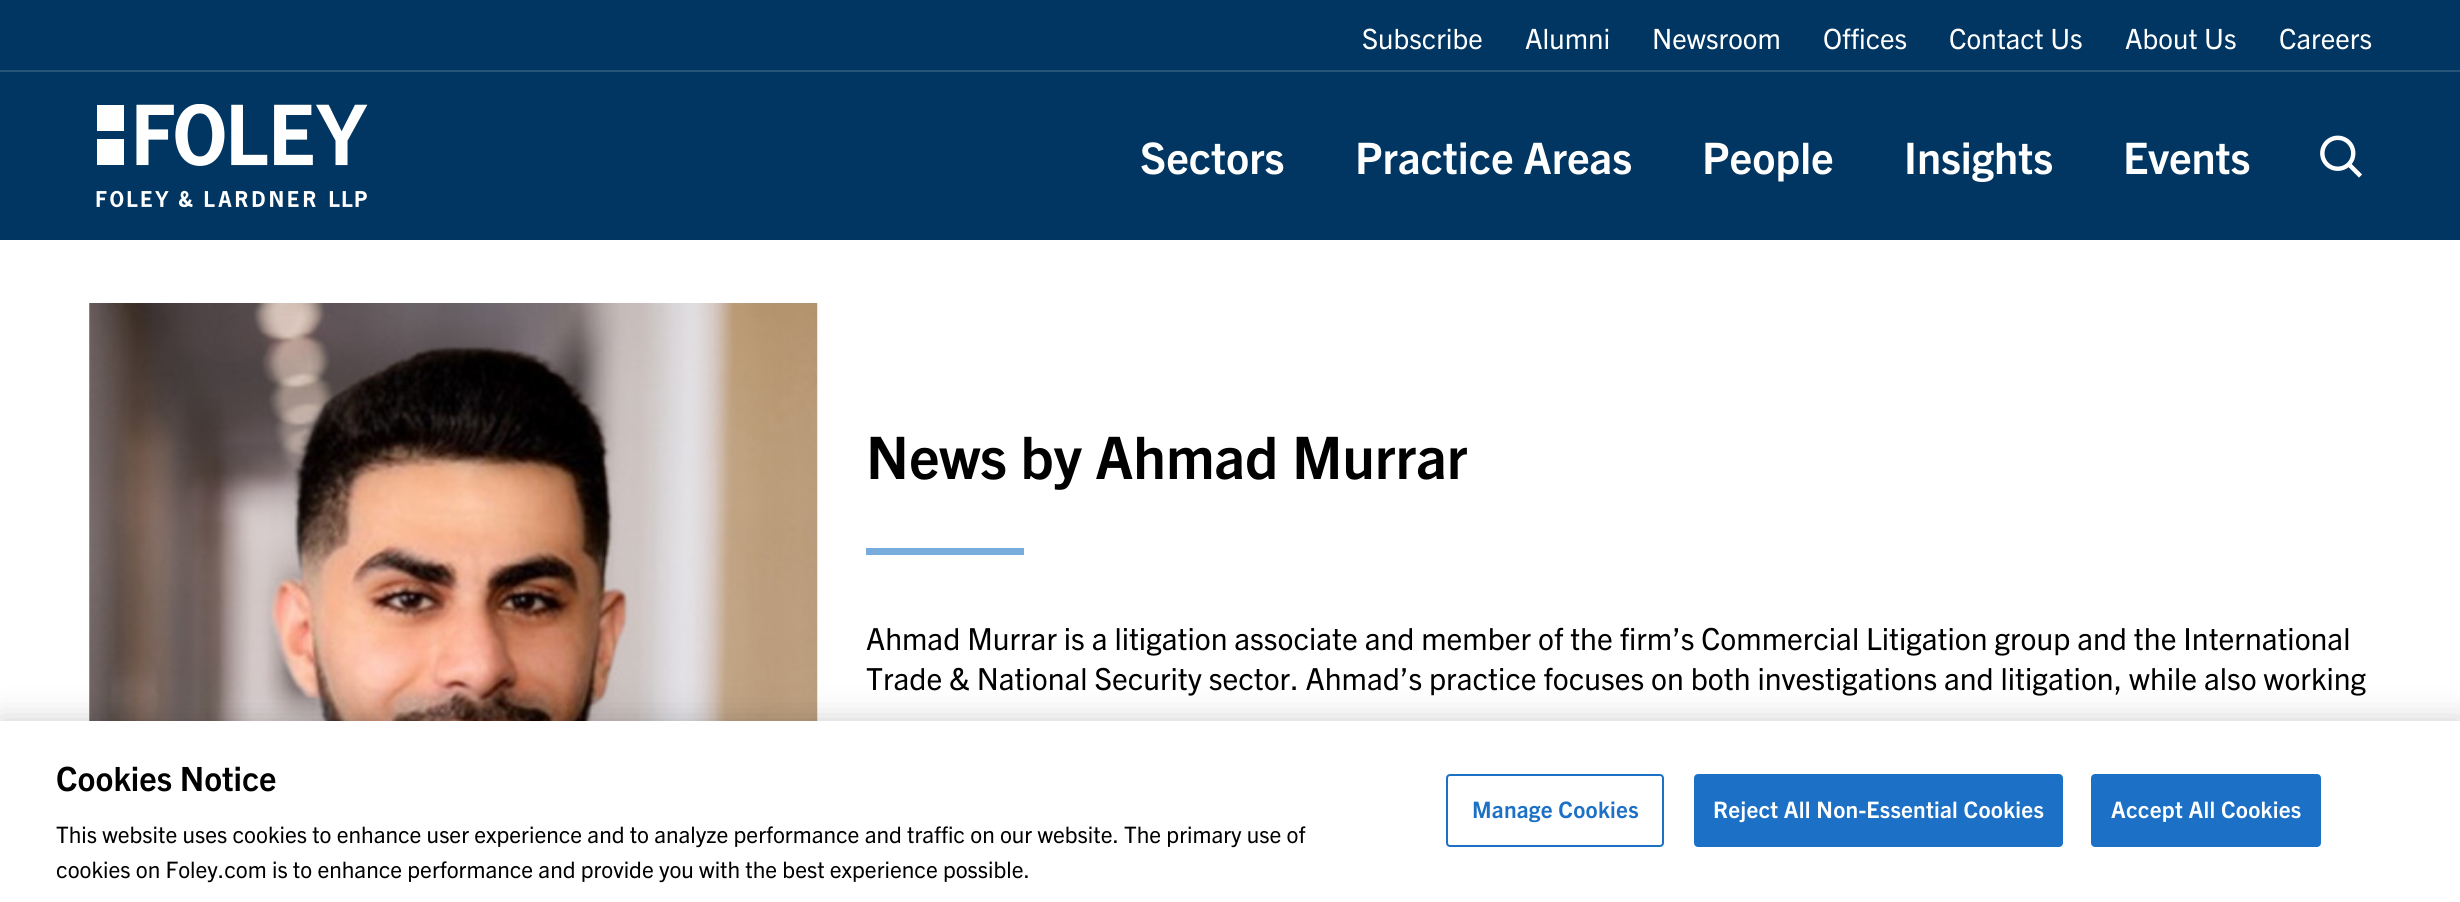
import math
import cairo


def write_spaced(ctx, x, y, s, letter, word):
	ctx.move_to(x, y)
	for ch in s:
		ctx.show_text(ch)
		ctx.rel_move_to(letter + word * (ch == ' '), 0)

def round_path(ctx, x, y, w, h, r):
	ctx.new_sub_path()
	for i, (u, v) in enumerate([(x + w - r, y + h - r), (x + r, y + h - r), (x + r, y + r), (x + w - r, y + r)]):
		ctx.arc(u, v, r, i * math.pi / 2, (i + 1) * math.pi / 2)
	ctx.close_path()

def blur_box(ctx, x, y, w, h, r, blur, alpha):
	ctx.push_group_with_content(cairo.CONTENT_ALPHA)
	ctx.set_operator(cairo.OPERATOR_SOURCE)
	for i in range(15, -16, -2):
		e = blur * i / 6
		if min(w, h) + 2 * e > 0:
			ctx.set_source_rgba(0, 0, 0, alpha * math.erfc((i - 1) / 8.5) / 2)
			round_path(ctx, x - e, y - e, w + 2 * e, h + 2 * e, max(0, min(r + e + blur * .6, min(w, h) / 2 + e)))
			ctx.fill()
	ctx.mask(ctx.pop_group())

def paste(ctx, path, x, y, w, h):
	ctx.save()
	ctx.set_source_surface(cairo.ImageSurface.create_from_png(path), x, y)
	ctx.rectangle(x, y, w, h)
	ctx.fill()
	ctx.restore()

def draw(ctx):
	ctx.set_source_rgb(1, 1, 1)
	ctx.paint()
	ctx.set_source_rgb(0, 0.212, 0.38)
	ctx.rectangle(0, 0, 2460, 240)
	ctx.fill()
	ctx.select_font_face('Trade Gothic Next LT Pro')
	ctx.set_font_size(28)
	ctx.set_source_rgb(1, 1, 1)
	for x, y, s in [
		(1362, 49, 'Subscribe'),
		(1525, 49, 'Alumni'),
		(1652, 49, 'Newsroom'),
		(1823, 49, 'Offices'),
		(1949, 49, 'Contact Us'),
		(2125, 49, 'About Us'),
		(2279, 49, 'Careers'),
	]:
		ctx.move_to(x, y)
		ctx.show_text(s)
	ctx.set_source_rgb(0.149, 0.329, 0.475)
	ctx.rectangle(0, 70, 2460, 2)
	ctx.fill()
	paste(ctx, 'media/1.png', 96, 104, 272, 104)
	ctx.select_font_face('Trade Gothic Next LT Pro', cairo.FONT_SLANT_NORMAL, cairo.FONT_WEIGHT_BOLD)
	ctx.set_font_size(43.5)
	ctx.set_source_rgb(1, 1, 1)
	for x, y, s in [
		(1140, 174, 'Sectors'),
		(1355, 174, 'Practice Areas'),
		(1702, 174, 'People'),
		(1904, 174, 'Insights'),
		(2123, 174, 'Events'),
	]:
		ctx.move_to(x, y)
		ctx.show_text(s)
	paste(ctx, 'media/2.png', 2320, 135, 42, 43)
	paste(ctx, 'media/3.png', 89, 303, 729, 418)
	ctx.set_font_size(58.75)
	ctx.set_source_rgb(0, 0, 0)
	ctx.move_to(866, 479)
	ctx.show_text('News by Ahmad Murrar')
	ctx.set_source_rgb(0.471, 0.675, 0.867)
	ctx.rectangle(866, 548, 158, 7)
	ctx.fill()
	ctx.select_font_face('Trade Gothic Next LT Pro')
	ctx.set_font_size(30.45)
	ctx.set_source_rgb(0, 0, 0)
	write_spaced(ctx, 866, 650, 'Ahmad Murrar is a litigation associate and member of the firm’s Commercial Litigation group and the International', 0, -0.1)
	write_spaced(ctx, 866, 690, 'Trade & National Security sector. Ahmad’s practice focuses on both investigations and litigation, while also working', 0, -0.1)
	ctx.set_source_rgb(0, 0, 0)
	blur_box(ctx, 0, 721, 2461, 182, 0, 16, 0.2)
	ctx.set_source_rgb(1, 1, 1)
	ctx.rectangle(0, 721, 2460, 181)
	ctx.fill()
	ctx.select_font_face('Trade Gothic Next LT Pro', cairo.FONT_SLANT_NORMAL, cairo.FONT_WEIGHT_BOLD)
	ctx.set_font_size(33.5)
	ctx.set_source_rgb(0, 0, 0)
	ctx.move_to(56, 791)
	ctx.show_text('Cookies Notice')
	ctx.select_font_face('Trade Gothic Next LT Pro')
	ctx.set_font_size(22.75)
	ctx.move_to(56, 843)
	ctx.show_text('This website uses cookies to enhance user experience and to analyze performance and traffic on our website. The primary use of')
	ctx.move_to(56, 878)
	ctx.show_text('cookies on Foley.com is to enhance performance and provide you with the best experience possible.')
	round_path(ctx, 1447, 775, 216, 71, 3)
	ctx.set_source_rgb(0.11, 0.439, 0.776)
	ctx.stroke()
	ctx.select_font_face('Trade Gothic Next LT Pro', cairo.FONT_SLANT_NORMAL, cairo.FONT_WEIGHT_BOLD)
	write_spaced(ctx, 1472, 818, 'Manage Cookies', 0.25, 0)
	round_path(ctx, 1695, 775, 367, 71, 3)
	ctx.fill_preserve()
	ctx.stroke()
	ctx.set_source_rgb(1, 1, 1)
	write_spaced(ctx, 1713, 818, 'Reject All Non-Essential Cookies', 0.25, 0)
	ctx.set_source_rgb(0.11, 0.439, 0.776)
	round_path(ctx, 2092, 775, 228, 71, 3)
	ctx.fill_preserve()
	ctx.stroke()
	ctx.set_source_rgb(1, 1, 1)
	write_spaced(ctx, 2111, 818, 'Accept All Cookies', 0.25, 0)


surface = cairo.ImageSurface(cairo.FORMAT_RGB24, 2460, 902)
ctx = cairo.Context(surface)
options = cairo.FontOptions()
options.set_hint_metrics(cairo.HINT_METRICS_OFF)
options.set_hint_style(cairo.HINT_STYLE_NONE)
ctx.set_font_options(options)
ctx.set_miter_limit(4)
draw(ctx)
surface.write_to_png('image.png')
